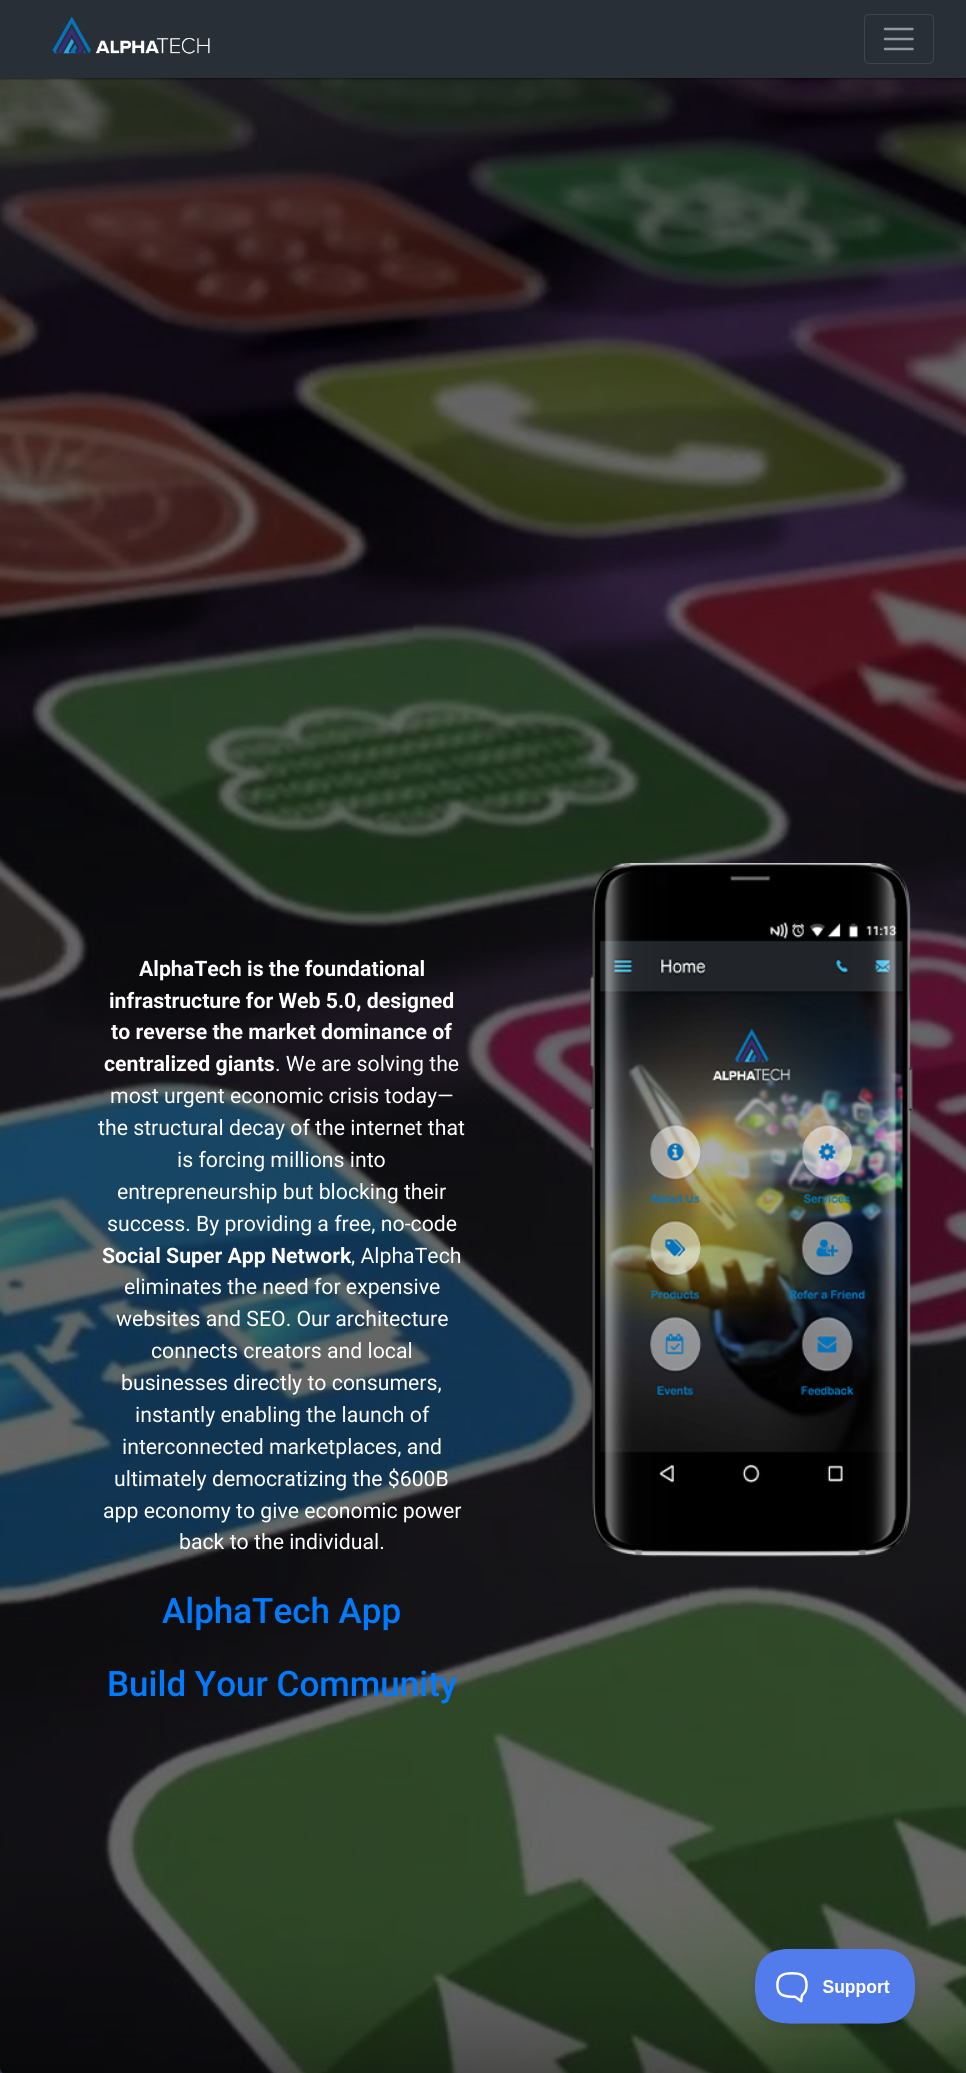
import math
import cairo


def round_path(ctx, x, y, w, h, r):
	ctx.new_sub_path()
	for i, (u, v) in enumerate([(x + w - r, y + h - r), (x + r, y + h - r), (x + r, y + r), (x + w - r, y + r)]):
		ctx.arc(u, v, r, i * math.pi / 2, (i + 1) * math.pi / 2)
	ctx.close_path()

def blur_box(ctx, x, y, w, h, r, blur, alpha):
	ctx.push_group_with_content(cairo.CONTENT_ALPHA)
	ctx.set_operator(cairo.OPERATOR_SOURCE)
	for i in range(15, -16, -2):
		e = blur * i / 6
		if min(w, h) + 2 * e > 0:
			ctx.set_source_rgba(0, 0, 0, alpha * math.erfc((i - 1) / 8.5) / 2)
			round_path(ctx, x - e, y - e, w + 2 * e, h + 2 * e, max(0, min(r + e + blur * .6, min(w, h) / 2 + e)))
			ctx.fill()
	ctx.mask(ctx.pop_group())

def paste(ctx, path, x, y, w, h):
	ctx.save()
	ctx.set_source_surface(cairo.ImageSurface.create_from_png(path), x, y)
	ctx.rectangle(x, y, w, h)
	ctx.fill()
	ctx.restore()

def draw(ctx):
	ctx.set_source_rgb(1, 1, 1)
	ctx.paint()
	gradient = cairo.LinearGradient(483, 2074, 483, 0)
	gradient.add_color_stop_rgba(0, 0.176, 0.18, 0.29, 1)
	gradient.add_color_stop_rgba(1, 0.016, 0.451, 0.725, 1)
	ctx.set_source(gradient)
	ctx.rectangle(0, 2068, 966, 5)
	ctx.fill()
	ctx.set_source_rgb(0.09, 0.169, 0.388)
	blur_box(ctx, 0, 2010, 408, 54, 5, 17.5, 0.24)
	paste(ctx, 'media/2.png', 0, 78, 966, 1995)
	ctx.set_source_rgba(0, 0, 0, 0.6)
	round_path(ctx, 0, 0, 966, 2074, 6)
	ctx.fill()
	ctx.set_source_rgb(0, 0, 0)
	blur_box(ctx, 0, 1, 966, 78, 0, 1, 0.5)
	ctx.set_source_rgb(0.157, 0.184, 0.216)
	ctx.rectangle(0, 0, 966, 78)
	ctx.fill()
	paste(ctx, 'media/1.png', 52, 16, 158, 38)
	round_path(ctx, 864.5, 14.5, 69, 49, 4.5)
	ctx.set_source_rgb(0.243, 0.267, 0.294)
	ctx.set_line_width(1)
	ctx.stroke()
	ctx.new_path()
	ctx.move_to(885, 29)
	ctx.line_to(912.5, 29)
	ctx.move_to(885, 39)
	ctx.line_to(912.5, 39)
	ctx.move_to(885, 49)
	ctx.line_to(912.5, 49)
	ctx.set_source_rgb(0.58, 0.592, 0.608)
	ctx.set_line_width(2.5)
	ctx.set_line_cap(cairo.LINE_CAP_ROUND)
	ctx.stroke()
	ctx.select_font_face('Roboto', cairo.FONT_SLANT_NORMAL, cairo.FONT_WEIGHT_BOLD)
	ctx.set_font_size(21.25)
	ctx.set_source_rgb(1, 1, 1)
	for x, y, s in [
		(139, 976, 'AlphaTech is the foundational'),
		(109, 1008, 'infrastructure for Web 5.0, designed'),
		(111, 1039, 'to reverse the market dominance of'),
		(104, 1071, 'centralized giants'),
	]:
		ctx.move_to(x, y)
		ctx.show_text(s)
	ctx.select_font_face('Roboto')
	for x, y, s in [
		(275, 1071, '. We are solving the'),
		(110, 1103, 'most urgent economic crisis today—'),
		(98, 1135, 'the structural decay of the internet that'),
		(177, 1167, 'is forcing millions into'),
		(117, 1199, 'entrepreneurship but blocking their'),
		(107, 1231, 'success. By providing a free, no-code'),
	]:
		ctx.move_to(x, y)
		ctx.show_text(s)
	ctx.select_font_face('Roboto', cairo.FONT_SLANT_NORMAL, cairo.FONT_WEIGHT_BOLD)
	ctx.move_to(102, 1263)
	ctx.show_text('Social Super App Network')
	ctx.select_font_face('Roboto')
	for x, y, s in [
		(351, 1263, ', AlphaTech'),
		(124, 1294, 'eliminates the need for expensive'),
		(116, 1326, 'websites and SEO. Our architecture'),
		(151, 1358, 'connects creators and local'),
		(121, 1390, 'businesses directly to consumers,'),
		(135, 1422, 'instantly enabling the launch of'),
		(122, 1454, 'interconnected marketplaces, and'),
		(114, 1486, 'ultimately democratizing the $600B'),
		(103, 1518, 'app economy to give economic power'),
		(179, 1549, 'back to the individual.'),
	]:
		ctx.move_to(x, y)
		ctx.show_text(s)
	ctx.select_font_face('Roboto Medium')
	ctx.set_font_size(35)
	ctx.set_source_rgb(0, 0.482, 1)
	ctx.move_to(162, 1623)
	ctx.show_text('AlphaTech App')
	ctx.move_to(107, 1696)
	ctx.show_text('Build Your Community')
	paste(ctx, 'media/3.png', 590, 863, 323, 694)
	ctx.set_source_rgb(0, 0, 0)
	blur_box(ctx, 755, 1954, 161, 75, 37.5, 4.5, 0.1)
	paste(ctx, 'media/4.png', 755, 1948, 160, 76)


surface = cairo.ImageSurface(cairo.FORMAT_RGB24, 966, 2073)
ctx = cairo.Context(surface)
options = cairo.FontOptions()
options.set_hint_metrics(cairo.HINT_METRICS_OFF)
options.set_hint_style(cairo.HINT_STYLE_NONE)
ctx.set_font_options(options)
ctx.set_miter_limit(4)
draw(ctx)
surface.write_to_png('image.png')
